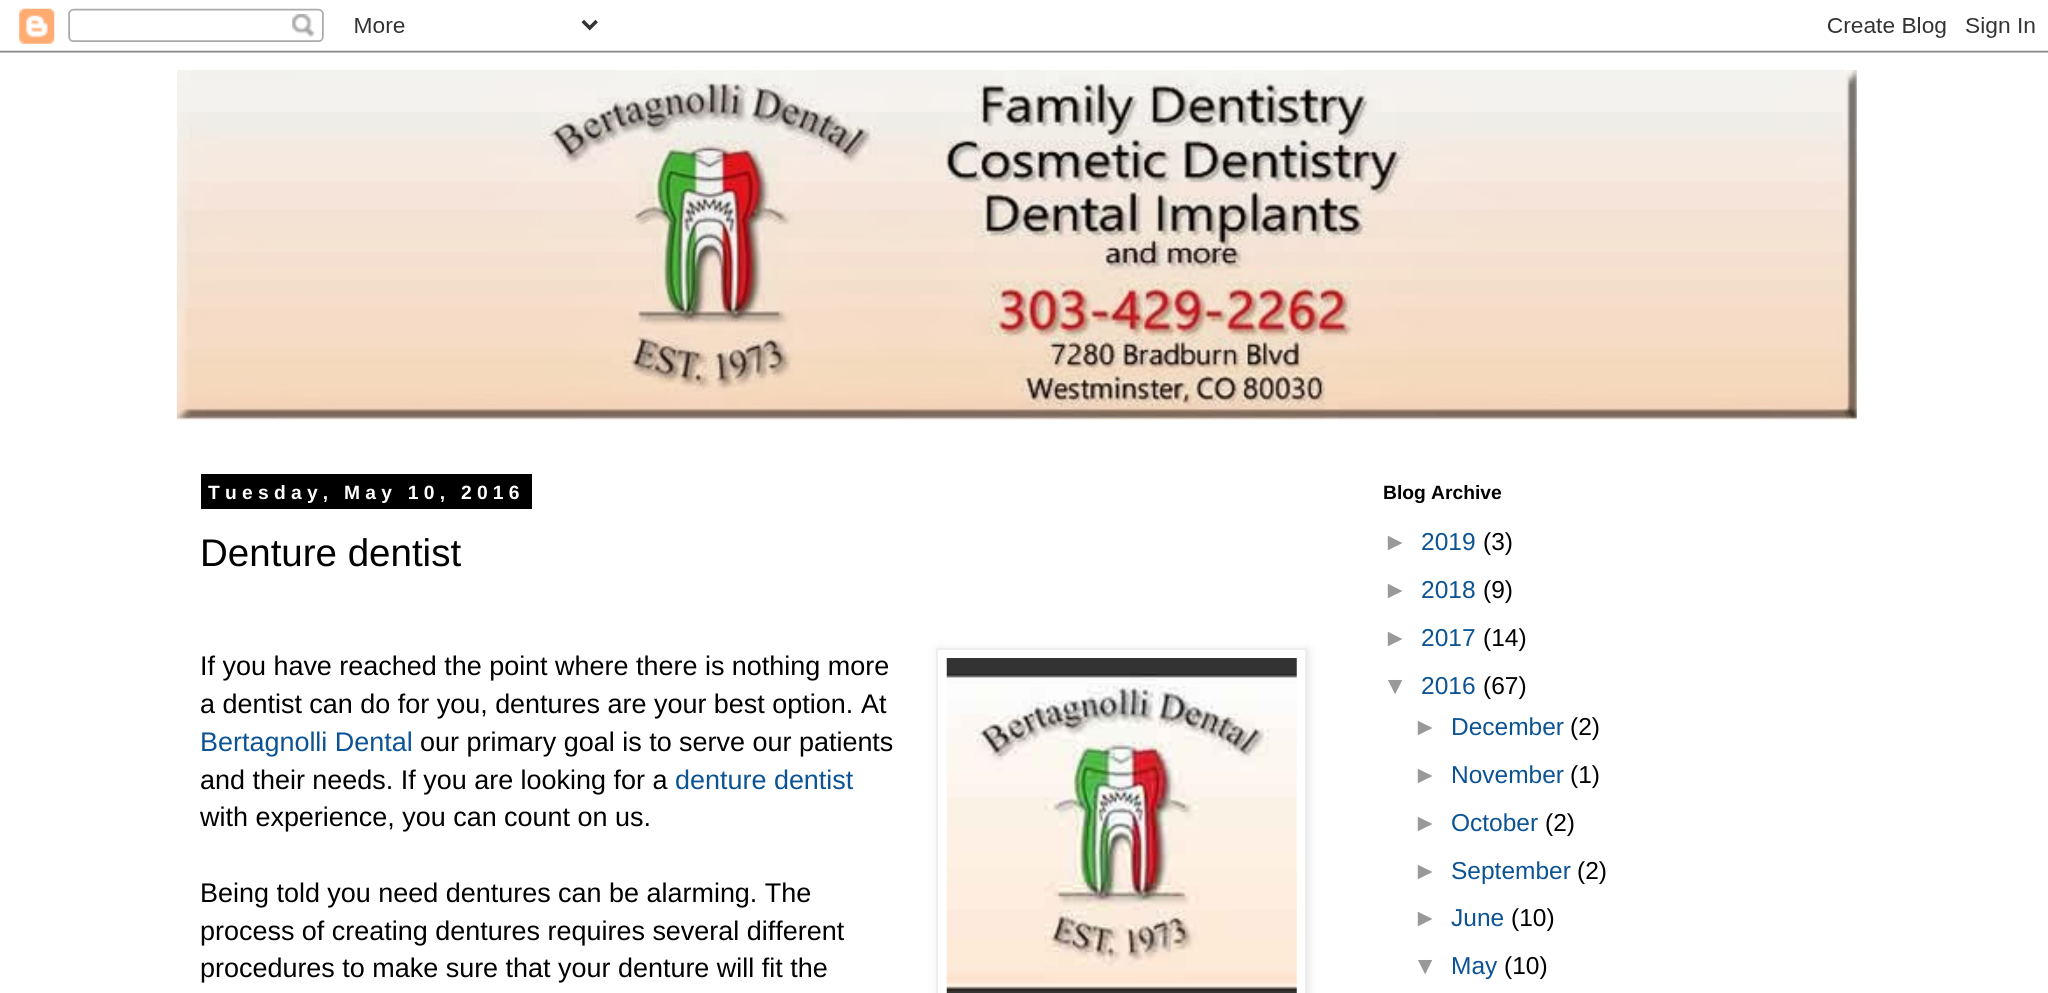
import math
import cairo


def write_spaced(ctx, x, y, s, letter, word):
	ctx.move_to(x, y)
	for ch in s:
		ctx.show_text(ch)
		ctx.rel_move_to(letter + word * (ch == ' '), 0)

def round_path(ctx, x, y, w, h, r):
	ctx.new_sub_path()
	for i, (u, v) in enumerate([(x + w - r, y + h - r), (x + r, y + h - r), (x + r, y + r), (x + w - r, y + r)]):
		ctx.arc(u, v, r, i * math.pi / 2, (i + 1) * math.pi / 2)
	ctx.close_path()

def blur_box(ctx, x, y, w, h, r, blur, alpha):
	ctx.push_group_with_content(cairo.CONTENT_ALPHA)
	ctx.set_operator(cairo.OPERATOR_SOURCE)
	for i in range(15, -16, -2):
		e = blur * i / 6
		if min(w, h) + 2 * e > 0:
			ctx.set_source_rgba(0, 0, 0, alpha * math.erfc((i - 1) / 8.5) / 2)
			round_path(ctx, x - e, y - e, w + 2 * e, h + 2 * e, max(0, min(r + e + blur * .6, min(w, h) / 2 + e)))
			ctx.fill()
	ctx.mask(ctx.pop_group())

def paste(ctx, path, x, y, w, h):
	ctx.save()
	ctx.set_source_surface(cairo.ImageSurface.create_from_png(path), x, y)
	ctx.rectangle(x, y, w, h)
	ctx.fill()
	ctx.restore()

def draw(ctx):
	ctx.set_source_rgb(1, 1, 1)
	ctx.paint()
	paste(ctx, 'media/1.png', 0, 8, 2048, 45)
	paste(ctx, 'media/2.png', 176, 70, 1681, 350)
	ctx.set_source_rgb(0, 0, 0)
	ctx.rectangle(201, 474, 331, 35)
	ctx.fill()
	ctx.select_font_face('Liberation Sans', cairo.FONT_SLANT_NORMAL, cairo.FONT_WEIGHT_BOLD)
	ctx.set_font_size(19.25)
	ctx.set_source_rgb(1, 1, 1)
	write_spaced(ctx, 208, 499, 'Tuesday, May 10, 2016', 5.25, 0)
	ctx.select_font_face('Liberation Sans')
	ctx.set_font_size(38.5)
	ctx.set_source_rgb(0, 0, 0)
	ctx.move_to(200, 566)
	ctx.show_text('Denture dentist')
	ctx.set_font_size(26.95)
	ctx.move_to(200, 675)
	ctx.show_text('If you have reached the point where there is nothing more')
	ctx.set_source_rgb(0, 0, 0)
	blur_box(ctx, 938, 649, 371, 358, 0, 4.5, 0.1)
	ctx.set_source_rgb(1, 1, 1)
	ctx.rectangle(937, 649, 369, 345)
	ctx.fill_preserve()
	ctx.set_source_rgb(0.933, 0.933, 0.933)
	ctx.stroke()
	paste(ctx, 'media/3.png', 946, 658, 351, 335)
	ctx.set_source_rgb(0, 0, 0)
	ctx.move_to(200, 713)
	ctx.show_text('a dentist can do for you, dentures are your best option.')
	ctx.move_to(861, 713)
	ctx.show_text('At')
	ctx.set_source_rgb(0.043, 0.325, 0.58)
	ctx.move_to(200, 751)
	ctx.show_text('Bertagnolli Dental')
	ctx.set_source_rgb(0, 0, 0)
	ctx.move_to(420, 751)
	ctx.show_text('our primary goal is to serve our patients')
	ctx.move_to(200, 789)
	ctx.show_text('and their needs. If you are looking for a')
	ctx.set_source_rgb(0.043, 0.325, 0.58)
	ctx.move_to(675, 789)
	ctx.show_text('denture dentist')
	ctx.set_source_rgb(0, 0, 0)
	for x, y, s in [
		(200, 826, 'with experience, you can count on us.'),
		(200, 902, 'Being told you need dentures can be alarming. The'),
		(200, 940, 'process of creating dentures requires several different'),
		(200, 977, 'procedures to make sure that your denture will fit the'),
	]:
		ctx.move_to(x, y)
		ctx.show_text(s)
	ctx.select_font_face('Liberation Sans', cairo.FONT_SLANT_NORMAL, cairo.FONT_WEIGHT_BOLD)
	ctx.set_font_size(19.25)
	ctx.move_to(1383, 499)
	ctx.show_text('Blog Archive')
	ctx.select_font_face('Liberation Sans')
	ctx.set_font_size(24.5)
	ctx.set_source_rgb(0.6, 0.6, 0.6)
	ctx.move_to(1383, 550)
	ctx.show_text('►')
	ctx.set_source_rgb(0.043, 0.325, 0.58)
	ctx.move_to(1421, 550)
	ctx.show_text('2019')
	ctx.set_source_rgb(0, 0, 0)
	ctx.move_to(1483, 550)
	ctx.show_text('(3)')
	ctx.set_source_rgb(0.6, 0.6, 0.6)
	ctx.move_to(1383, 598)
	ctx.show_text('►')
	ctx.set_source_rgb(0.043, 0.325, 0.58)
	ctx.move_to(1421, 598)
	ctx.show_text('2018')
	ctx.set_source_rgb(0, 0, 0)
	ctx.move_to(1483, 598)
	ctx.show_text('(9)')
	ctx.set_source_rgb(0.6, 0.6, 0.6)
	ctx.move_to(1383, 646)
	ctx.show_text('►')
	ctx.set_source_rgb(0.043, 0.325, 0.58)
	ctx.move_to(1421, 646)
	ctx.show_text('2017')
	ctx.set_source_rgb(0, 0, 0)
	ctx.move_to(1483, 646)
	ctx.show_text('(14)')
	ctx.set_source_rgb(0.6, 0.6, 0.6)
	ctx.move_to(1383, 694)
	ctx.show_text('▼')
	ctx.set_source_rgb(0.043, 0.325, 0.58)
	ctx.move_to(1421, 694)
	ctx.show_text('2016')
	ctx.set_source_rgb(0, 0, 0)
	ctx.move_to(1483, 694)
	ctx.show_text('(67)')
	ctx.set_source_rgb(0.6, 0.6, 0.6)
	ctx.move_to(1413, 735)
	ctx.show_text('►')
	ctx.set_source_rgb(0.043, 0.325, 0.58)
	ctx.move_to(1451, 735)
	ctx.show_text('December')
	ctx.set_source_rgb(0, 0, 0)
	ctx.move_to(1570, 735)
	ctx.show_text('(2)')
	ctx.set_source_rgb(0.6, 0.6, 0.6)
	ctx.move_to(1413, 783)
	ctx.show_text('►')
	ctx.set_source_rgb(0.043, 0.325, 0.58)
	ctx.move_to(1451, 783)
	ctx.show_text('November')
	ctx.set_source_rgb(0, 0, 0)
	ctx.move_to(1570, 783)
	ctx.show_text('(1)')
	ctx.set_source_rgb(0.6, 0.6, 0.6)
	ctx.move_to(1413, 831)
	ctx.show_text('►')
	ctx.set_source_rgb(0.043, 0.325, 0.58)
	ctx.move_to(1451, 831)
	ctx.show_text('October')
	ctx.set_source_rgb(0, 0, 0)
	ctx.move_to(1545, 831)
	ctx.show_text('(2)')
	ctx.set_source_rgb(0.6, 0.6, 0.6)
	ctx.move_to(1413, 879)
	ctx.show_text('►')
	ctx.set_source_rgb(0.043, 0.325, 0.58)
	ctx.move_to(1451, 879)
	ctx.show_text('September')
	ctx.set_source_rgb(0, 0, 0)
	ctx.move_to(1577, 879)
	ctx.show_text('(2)')
	ctx.set_source_rgb(0.6, 0.6, 0.6)
	ctx.move_to(1413, 926)
	ctx.show_text('►')
	ctx.set_source_rgb(0.043, 0.325, 0.58)
	ctx.move_to(1451, 926)
	ctx.show_text('June')
	ctx.set_source_rgb(0, 0, 0)
	ctx.move_to(1511, 926)
	ctx.show_text('(10)')
	ctx.set_source_rgb(0.6, 0.6, 0.6)
	ctx.move_to(1413, 974)
	ctx.show_text('▼')
	ctx.set_source_rgb(0.043, 0.325, 0.58)
	ctx.move_to(1451, 974)
	ctx.show_text('May')
	ctx.set_source_rgb(0, 0, 0)
	ctx.move_to(1504, 974)
	ctx.show_text('(10)')


surface = cairo.ImageSurface(cairo.FORMAT_RGB24, 2048, 993)
ctx = cairo.Context(surface)
options = cairo.FontOptions()
options.set_hint_metrics(cairo.HINT_METRICS_OFF)
options.set_hint_style(cairo.HINT_STYLE_NONE)
ctx.set_font_options(options)
ctx.set_miter_limit(4)
draw(ctx)
surface.write_to_png('image.png')
